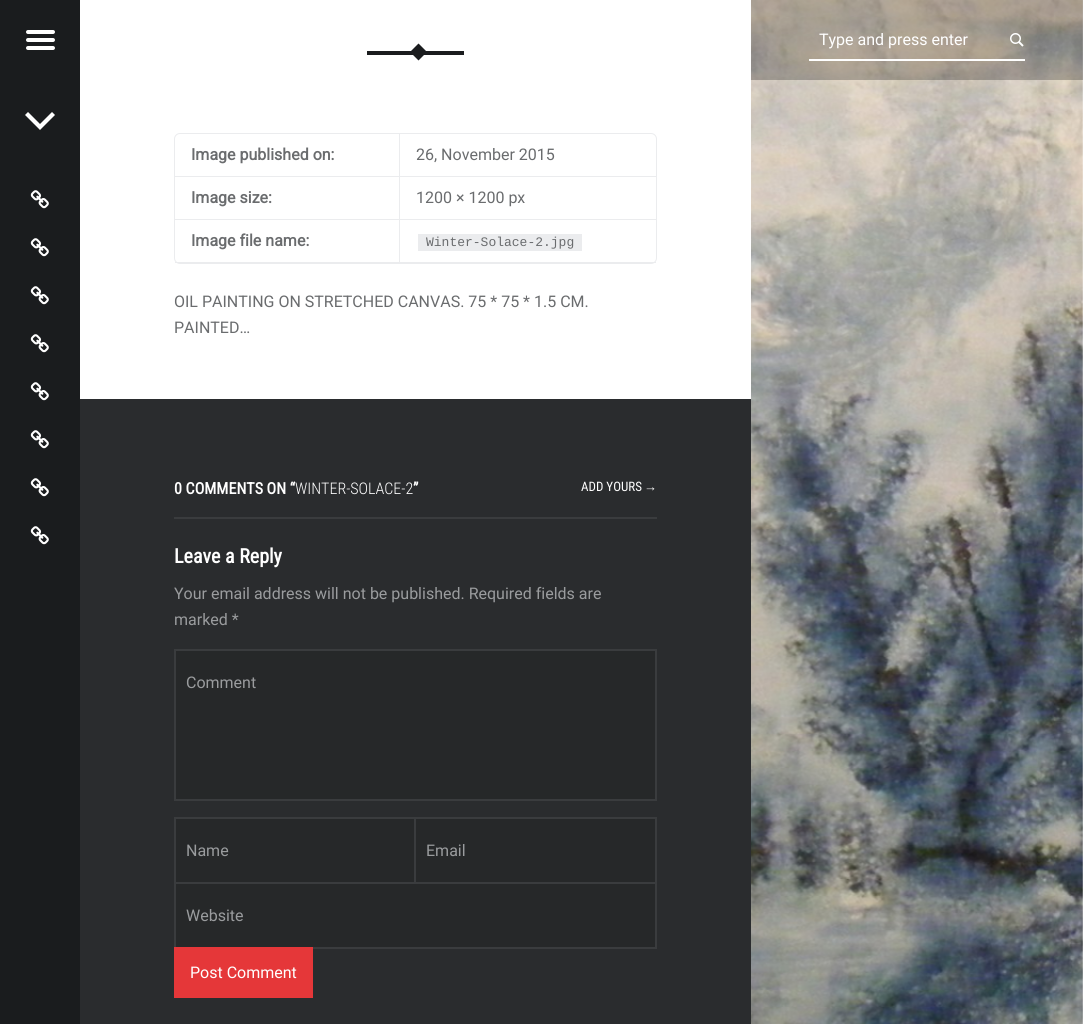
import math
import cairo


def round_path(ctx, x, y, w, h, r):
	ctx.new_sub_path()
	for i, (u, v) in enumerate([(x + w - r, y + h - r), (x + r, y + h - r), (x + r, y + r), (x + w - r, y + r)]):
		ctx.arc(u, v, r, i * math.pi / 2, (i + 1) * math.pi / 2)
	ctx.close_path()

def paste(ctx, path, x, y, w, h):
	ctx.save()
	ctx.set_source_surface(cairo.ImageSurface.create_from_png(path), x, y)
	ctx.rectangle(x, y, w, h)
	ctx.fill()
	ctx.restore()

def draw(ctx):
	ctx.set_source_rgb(1, 1, 1)
	ctx.paint()
	ctx.set_source_rgb(0.102, 0.11, 0.118)
	ctx.rectangle(0, 0, 80, 1024)
	ctx.fill()
	ctx.set_source_rgb(1, 1, 1)
	round_path(ctx, 26, 30, 29, 4, 2)
	ctx.fill()
	round_path(ctx, 26, 38, 29, 4, 2)
	ctx.fill()
	round_path(ctx, 26, 46, 29, 4, 2)
	ctx.fill()
	ctx.new_path()
	ctx.move_to(40, 130)
	ctx.line_to(25, 115)
	ctx.line_to(28, 112)
	ctx.line_to(40, 124)
	ctx.line_to(52, 112)
	ctx.line_to(55, 115)
	ctx.close_path()
	ctx.fill()
	paste(ctx, 'media/1.png', 30, 190, 19, 19)
	paste(ctx, 'media/1.png', 30, 238, 19, 19)
	paste(ctx, 'media/1.png', 30, 286, 19, 19)
	paste(ctx, 'media/1.png', 30, 334, 19, 19)
	paste(ctx, 'media/1.png', 30, 382, 19, 19)
	paste(ctx, 'media/1.png', 30, 430, 19, 19)
	paste(ctx, 'media/1.png', 30, 478, 19, 19)
	paste(ctx, 'media/1.png', 30, 526, 19, 19)
	paste(ctx, 'media/3.png', 751, 0, 332, 1024)
	ctx.set_source_rgba(0, 0, 0, 0.25)
	ctx.rectangle(751, 0, 332, 80)
	ctx.fill()
	ctx.set_source_rgb(1, 1, 1)
	ctx.rectangle(809, 59, 216, 2)
	ctx.fill()
	ctx.select_font_face('Roboto')
	ctx.set_font_size(16)
	ctx.move_to(819, 45)
	ctx.show_text('Type and press enter')
	paste(ctx, 'media/2.png', 1010, 33, 14, 14)
	ctx.set_source_rgb(0.102, 0.11, 0.118)
	ctx.rectangle(367, 51, 97, 4)
	ctx.fill()
	ctx.new_path()
	ctx.move_to(418.5, 43.5)
	ctx.line_to(427, 52)
	ctx.line_to(418.5, 60.5)
	ctx.line_to(410, 52)
	ctx.close_path()
	ctx.fill()
	round_path(ctx, 174.5, 133.5, 482, 130, 5.5)
	ctx.set_source_rgb(0.918, 0.925, 0.933)
	ctx.set_line_width(1)
	ctx.stroke()
	ctx.rectangle(175, 176, 481, 1)
	ctx.fill()
	ctx.select_font_face('Roboto', cairo.FONT_SLANT_NORMAL, cairo.FONT_WEIGHT_BOLD)
	ctx.set_source_rgb(0.416, 0.424, 0.431)
	ctx.move_to(191, 160)
	ctx.show_text('Image published on:')
	ctx.set_source_rgb(0.918, 0.925, 0.933)
	ctx.rectangle(399, 134, 1, 43)
	ctx.fill()
	ctx.select_font_face('Roboto')
	ctx.set_source_rgb(0.416, 0.424, 0.431)
	ctx.move_to(416, 160)
	ctx.show_text('26, November 2015')
	ctx.set_source_rgb(0.918, 0.925, 0.933)
	ctx.rectangle(175, 219, 481, 1)
	ctx.fill()
	ctx.select_font_face('Roboto', cairo.FONT_SLANT_NORMAL, cairo.FONT_WEIGHT_BOLD)
	ctx.set_source_rgb(0.416, 0.424, 0.431)
	ctx.move_to(191, 203)
	ctx.show_text('Image size:')
	ctx.set_source_rgb(0.918, 0.925, 0.933)
	ctx.rectangle(399, 177, 1, 43)
	ctx.fill()
	ctx.select_font_face('Roboto')
	ctx.set_source_rgb(0.416, 0.424, 0.431)
	ctx.move_to(416, 203)
	ctx.show_text('1200 × 1200 px')
	ctx.set_source_rgb(0.918, 0.925, 0.933)
	ctx.rectangle(175, 262, 481, 1)
	ctx.fill()
	ctx.select_font_face('Roboto', cairo.FONT_SLANT_NORMAL, cairo.FONT_WEIGHT_BOLD)
	ctx.set_source_rgb(0.416, 0.424, 0.431)
	ctx.move_to(191, 246)
	ctx.show_text('Image file name:')
	ctx.set_source_rgb(0.918, 0.925, 0.933)
	ctx.rectangle(399, 220, 1, 43)
	ctx.fill()
	ctx.rectangle(418, 234, 164, 17)
	ctx.fill()
	ctx.select_font_face('Liberation Mono')
	ctx.set_font_size(13)
	ctx.set_source_rgb(0.416, 0.424, 0.431)
	ctx.move_to(426, 246)
	ctx.show_text('Winter-Solace-2.jpg')
	ctx.select_font_face('Roboto')
	ctx.set_font_size(16)
	ctx.move_to(174, 307)
	ctx.show_text('OIL PAINTING ON STRETCHED CANVAS. 75 * 75 * 1.5 CM.')
	ctx.move_to(174, 333)
	ctx.show_text('PAINTED…')
	ctx.set_source_rgb(0.165, 0.173, 0.18)
	ctx.rectangle(80, 399, 671, 625)
	ctx.fill()
	ctx.select_font_face('Roboto Condensed', cairo.FONT_SLANT_NORMAL, cairo.FONT_WEIGHT_BOLD)
	ctx.set_source_rgb(1, 1, 1)
	ctx.move_to(174, 494)
	ctx.show_text('0 COMMENTS ON “')
	ctx.select_font_face('Roboto Condensed Light')
	ctx.move_to(295, 494)
	ctx.show_text('WINTER-SOLACE-2')
	ctx.select_font_face('Roboto Condensed', cairo.FONT_SLANT_NORMAL, cairo.FONT_WEIGHT_BOLD)
	ctx.move_to(413, 494)
	ctx.show_text('”')
	ctx.select_font_face('Roboto Condensed')
	ctx.set_font_size(13)
	ctx.move_to(581, 491)
	ctx.show_text('ADD YOURS')
	ctx.select_font_face('Liberation Sans')
	ctx.move_to(644, 491)
	ctx.show_text('→')
	ctx.set_source_rgb(0.227, 0.235, 0.243)
	ctx.rectangle(174, 517, 483, 2)
	ctx.fill()
	ctx.select_font_face('Roboto Condensed', cairo.FONT_SLANT_NORMAL, cairo.FONT_WEIGHT_BOLD)
	ctx.set_font_size(20)
	ctx.set_source_rgb(1, 1, 1)
	ctx.move_to(174, 563)
	ctx.show_text('Leave a Reply')
	ctx.select_font_face('Roboto')
	ctx.set_font_size(16)
	ctx.set_source_rgb(0.604, 0.612, 0.62)
	ctx.move_to(174, 599)
	ctx.show_text('Your email address will not be published. Required fields are')
	ctx.move_to(174, 625)
	ctx.show_text('marked *')
	ctx.set_source_rgb(0.149, 0.157, 0.161)
	ctx.rectangle(175, 650, 481, 150)
	ctx.fill_preserve()
	ctx.set_source_rgb(0.227, 0.235, 0.243)
	ctx.set_line_width(2)
	ctx.stroke()
	ctx.set_source_rgb(0.604, 0.612, 0.62)
	ctx.move_to(186, 688)
	ctx.show_text('Comment')
	ctx.set_source_rgb(0.149, 0.157, 0.161)
	ctx.rectangle(175, 818, 240, 65)
	ctx.fill_preserve()
	ctx.set_source_rgb(0.227, 0.235, 0.243)
	ctx.stroke()
	ctx.set_source_rgb(0.604, 0.612, 0.62)
	ctx.move_to(186, 856)
	ctx.show_text('Name')
	ctx.set_source_rgba(0, 0, 0, 0.1)
	ctx.rectangle(415, 818, 241, 65)
	ctx.fill_preserve()
	ctx.set_source_rgb(0.227, 0.235, 0.243)
	ctx.stroke()
	ctx.set_source_rgb(0.604, 0.612, 0.62)
	ctx.move_to(426, 856)
	ctx.show_text('Email')
	ctx.set_source_rgba(0, 0, 0, 0.1)
	ctx.rectangle(175, 883, 481, 65)
	ctx.fill_preserve()
	ctx.set_source_rgb(0.227, 0.235, 0.243)
	ctx.stroke()
	ctx.set_source_rgb(0.604, 0.612, 0.62)
	ctx.move_to(186, 921)
	ctx.show_text('Website')
	ctx.set_source_rgb(0.898, 0.216, 0.224)
	ctx.rectangle(174, 947, 139, 51)
	ctx.fill()
	ctx.set_source_rgb(1, 1, 1)
	ctx.move_to(190, 978)
	ctx.show_text('Post Comment')


surface = cairo.ImageSurface(cairo.FORMAT_RGB24, 1083, 1024)
ctx = cairo.Context(surface)
options = cairo.FontOptions()
options.set_hint_metrics(cairo.HINT_METRICS_OFF)
options.set_hint_style(cairo.HINT_STYLE_NONE)
ctx.set_font_options(options)
ctx.set_miter_limit(4)
draw(ctx)
surface.write_to_png('image.png')
